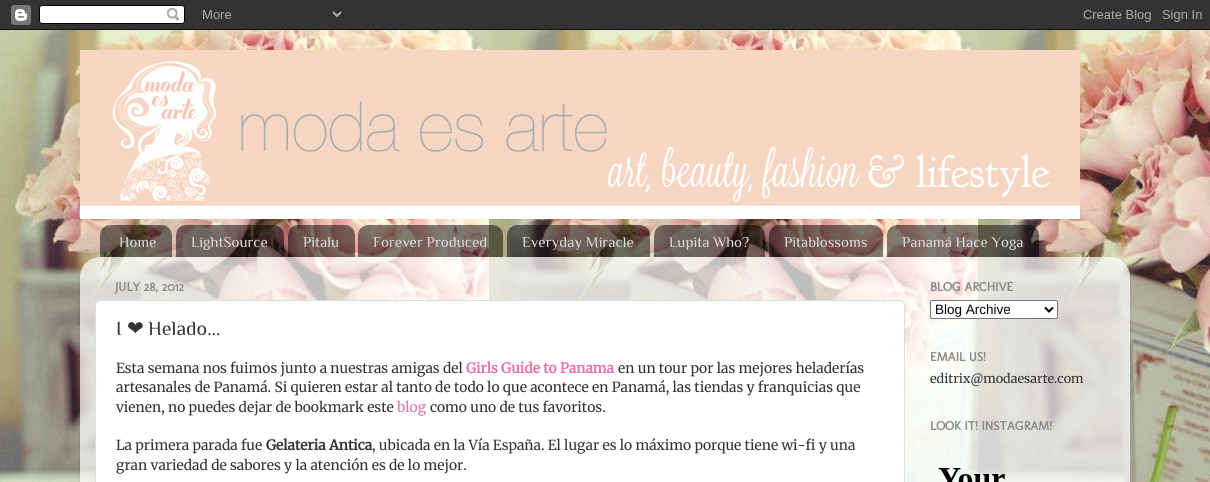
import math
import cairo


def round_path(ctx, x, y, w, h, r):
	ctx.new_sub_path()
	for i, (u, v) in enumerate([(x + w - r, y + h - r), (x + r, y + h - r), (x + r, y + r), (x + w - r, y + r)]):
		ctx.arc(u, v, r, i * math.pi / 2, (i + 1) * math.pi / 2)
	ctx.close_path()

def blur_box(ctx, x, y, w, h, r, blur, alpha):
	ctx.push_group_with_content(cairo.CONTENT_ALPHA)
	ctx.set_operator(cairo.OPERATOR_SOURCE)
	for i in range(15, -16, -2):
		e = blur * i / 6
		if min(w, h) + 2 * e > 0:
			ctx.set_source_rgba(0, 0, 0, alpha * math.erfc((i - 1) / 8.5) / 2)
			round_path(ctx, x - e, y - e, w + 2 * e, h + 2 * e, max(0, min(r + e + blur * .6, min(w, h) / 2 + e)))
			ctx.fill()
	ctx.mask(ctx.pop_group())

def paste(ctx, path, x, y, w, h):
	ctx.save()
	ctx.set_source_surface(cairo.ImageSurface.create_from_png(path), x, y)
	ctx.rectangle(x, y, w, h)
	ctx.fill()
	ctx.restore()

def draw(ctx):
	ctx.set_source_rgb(1, 1, 1)
	ctx.paint()
	paste(ctx, 'media/1.png', 0, 30, 1210, 452)
	paste(ctx, 'media/2.png', 0, 0, 1210, 30)
	paste(ctx, 'media/3.png', 80, 50, 1000, 169)
	paste(ctx, 'media/4.png', 100, 225, 72, 32)
	ctx.select_font_face('Philosopher')
	ctx.set_font_size(15)
	ctx.set_source_rgb(0.867, 0.867, 0.867)
	ctx.move_to(119, 247)
	ctx.show_text('Home')
	paste(ctx, 'media/5.png', 176, 225, 108, 32)
	ctx.move_to(191, 247)
	ctx.show_text('LightSource')
	paste(ctx, 'media/6.png', 288, 225, 67, 32)
	ctx.move_to(303, 247)
	ctx.show_text('Pitalu')
	paste(ctx, 'media/7.png', 358, 225, 145, 32)
	ctx.move_to(373, 247)
	ctx.show_text('Forever Produced')
	paste(ctx, 'media/8.png', 507, 225, 143, 32)
	ctx.move_to(522, 247)
	ctx.show_text('Everyday Miracle')
	paste(ctx, 'media/9.png', 654, 225, 111, 32)
	ctx.move_to(669, 247)
	ctx.show_text('Lupita Who?')
	paste(ctx, 'media/10.png', 769, 225, 114, 32)
	ctx.move_to(784, 247)
	ctx.show_text('Pitablossoms')
	paste(ctx, 'media/11.png', 887, 225, 152, 32)
	ctx.move_to(902, 247)
	ctx.show_text('Panamá Hace Yoga')
	ctx.save()
	ctx.set_fill_rule(cairo.FILL_RULE_EVEN_ODD)
	ctx.new_path()
	ctx.move_to(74, 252)
	ctx.line_to(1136, 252)
	ctx.line_to(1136, 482)
	ctx.line_to(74, 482)
	ctx.close_path()
	ctx.move_to(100, 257)
	ctx.line_to(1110, 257)
	ctx.curve_to(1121, 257, 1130, 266, 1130, 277)
	ctx.line_to(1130, 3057)
	ctx.line_to(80, 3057)
	ctx.line_to(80, 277)
	ctx.curve_to(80, 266, 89, 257, 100, 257)
	ctx.close_path()
	ctx.clip()
	ctx.set_source_rgb(0, 0, 0)
	blur_box(ctx, 80, 258, 1050, 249, 20, 1.5, 0.15)
	ctx.restore()
	paste(ctx, 'media/12.png', 80, 257, 1050, 225)
	ctx.select_font_face('Molengo', cairo.FONT_SLANT_NORMAL, cairo.FONT_WEIGHT_BOLD)
	ctx.set_font_size(12.6)
	ctx.set_source_rgb(0.533, 0.533, 0.533)
	ctx.move_to(115, 291)
	ctx.show_text('JULY 28, 2012')
	ctx.set_source_rgb(1, 1, 1)
	round_path(ctx, 95.5, 300.5, 809, 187, 4.5)
	ctx.fill_preserve()
	ctx.set_source_rgb(0.867, 0.867, 0.867)
	ctx.set_line_width(1)
	ctx.stroke()
	ctx.select_font_face('Philosopher')
	ctx.set_font_size(20)
	ctx.set_source_rgb(0.2, 0.2, 0.2)
	ctx.move_to(116, 335)
	ctx.show_text('I')
	ctx.select_font_face('DejaVu Sans')
	ctx.move_to(127, 335)
	ctx.show_text('❤')
	ctx.select_font_face('Philosopher')
	ctx.move_to(148, 335)
	ctx.show_text('Helado...')
	ctx.select_font_face('Merriweather Light')
	ctx.set_font_size(13.85)
	ctx.move_to(116, 373)
	ctx.show_text('Esta semana nos fuimos junto a nuestras amigas del')
	ctx.select_font_face('Merriweather', cairo.FONT_SLANT_NORMAL, cairo.FONT_WEIGHT_BOLD)
	ctx.set_source_rgb(0.914, 0.439, 0.675)
	ctx.move_to(466, 373)
	ctx.show_text('Girls Guide to Panama')
	ctx.select_font_face('Merriweather Light')
	ctx.set_source_rgb(0.2, 0.2, 0.2)
	for x, y, s in [
		(618, 373, 'en un tour por las mejores heladerías'),
		(116, 392, 'artesanales de Panamá. Si quieren estar al tanto de todo lo que acontece en Panamá, las tiendas y franquicias que'),
		(116, 412, 'vienen, no puedes dejar de bookmark este'),
	]:
		ctx.move_to(x, y)
		ctx.show_text(s)
	ctx.set_source_rgb(0.914, 0.439, 0.675)
	ctx.move_to(397, 412)
	ctx.show_text('blog')
	ctx.set_source_rgb(0.2, 0.2, 0.2)
	ctx.move_to(430, 412)
	ctx.show_text('como uno de tus favoritos.')
	ctx.move_to(116, 450)
	ctx.show_text('La primera parada fue')
	ctx.select_font_face('Merriweather', cairo.FONT_SLANT_NORMAL, cairo.FONT_WEIGHT_BOLD)
	ctx.move_to(266, 450)
	ctx.show_text('Gelateria Antica')
	ctx.select_font_face('Merriweather Light')
	ctx.move_to(372, 450)
	ctx.show_text(', ubicada en la Vía España. El lugar es lo máximo porque tiene wi-fi y una')
	ctx.move_to(116, 470)
	ctx.show_text('gran variedad de sabores y la atención es de lo mejor.')
	ctx.select_font_face('Molengo', cairo.FONT_SLANT_NORMAL, cairo.FONT_WEIGHT_BOLD)
	ctx.set_font_size(12.6)
	ctx.set_source_rgb(0.533, 0.533, 0.533)
	ctx.move_to(930, 291)
	ctx.show_text('BLOG ARCHIVE')
	ctx.set_source_rgb(1, 1, 1)
	round_path(ctx, 930.5, 300.5, 127, 18, 1.5)
	ctx.fill_preserve()
	ctx.set_source_rgb(0.463, 0.463, 0.463)
	ctx.stroke()
	ctx.new_path()
	ctx.move_to(1045, 307.5)
	ctx.line_to(1049, 311.5)
	ctx.line_to(1053, 307.5)
	ctx.set_source_rgb(0, 0, 0)
	ctx.set_line_width(2)
	ctx.stroke()
	ctx.select_font_face('Liberation Sans')
	ctx.set_font_size(13.5)
	ctx.move_to(935, 314)
	ctx.show_text('Blog Archive')
	ctx.select_font_face('Molengo', cairo.FONT_SLANT_NORMAL, cairo.FONT_WEIGHT_BOLD)
	ctx.set_font_size(12.6)
	ctx.set_source_rgb(0.533, 0.533, 0.533)
	ctx.move_to(930, 361)
	ctx.show_text('EMAIL US!')
	ctx.select_font_face('Merriweather Light')
	ctx.set_source_rgb(0.2, 0.2, 0.2)
	ctx.move_to(930, 383)
	ctx.show_text('editrix@modaesarte.com')
	ctx.select_font_face('Molengo', cairo.FONT_SLANT_NORMAL, cairo.FONT_WEIGHT_BOLD)
	ctx.set_source_rgb(0.533, 0.533, 0.533)
	ctx.move_to(930, 430)
	ctx.show_text('LOOK IT! INSTAGRAM!')
	paste(ctx, 'media/13.png', 938, 468, 67, 14)


surface = cairo.ImageSurface(cairo.FORMAT_RGB24, 1210, 482)
ctx = cairo.Context(surface)
options = cairo.FontOptions()
options.set_hint_metrics(cairo.HINT_METRICS_OFF)
options.set_hint_style(cairo.HINT_STYLE_NONE)
ctx.set_font_options(options)
ctx.set_miter_limit(4)
draw(ctx)
surface.write_to_png('image.png')
